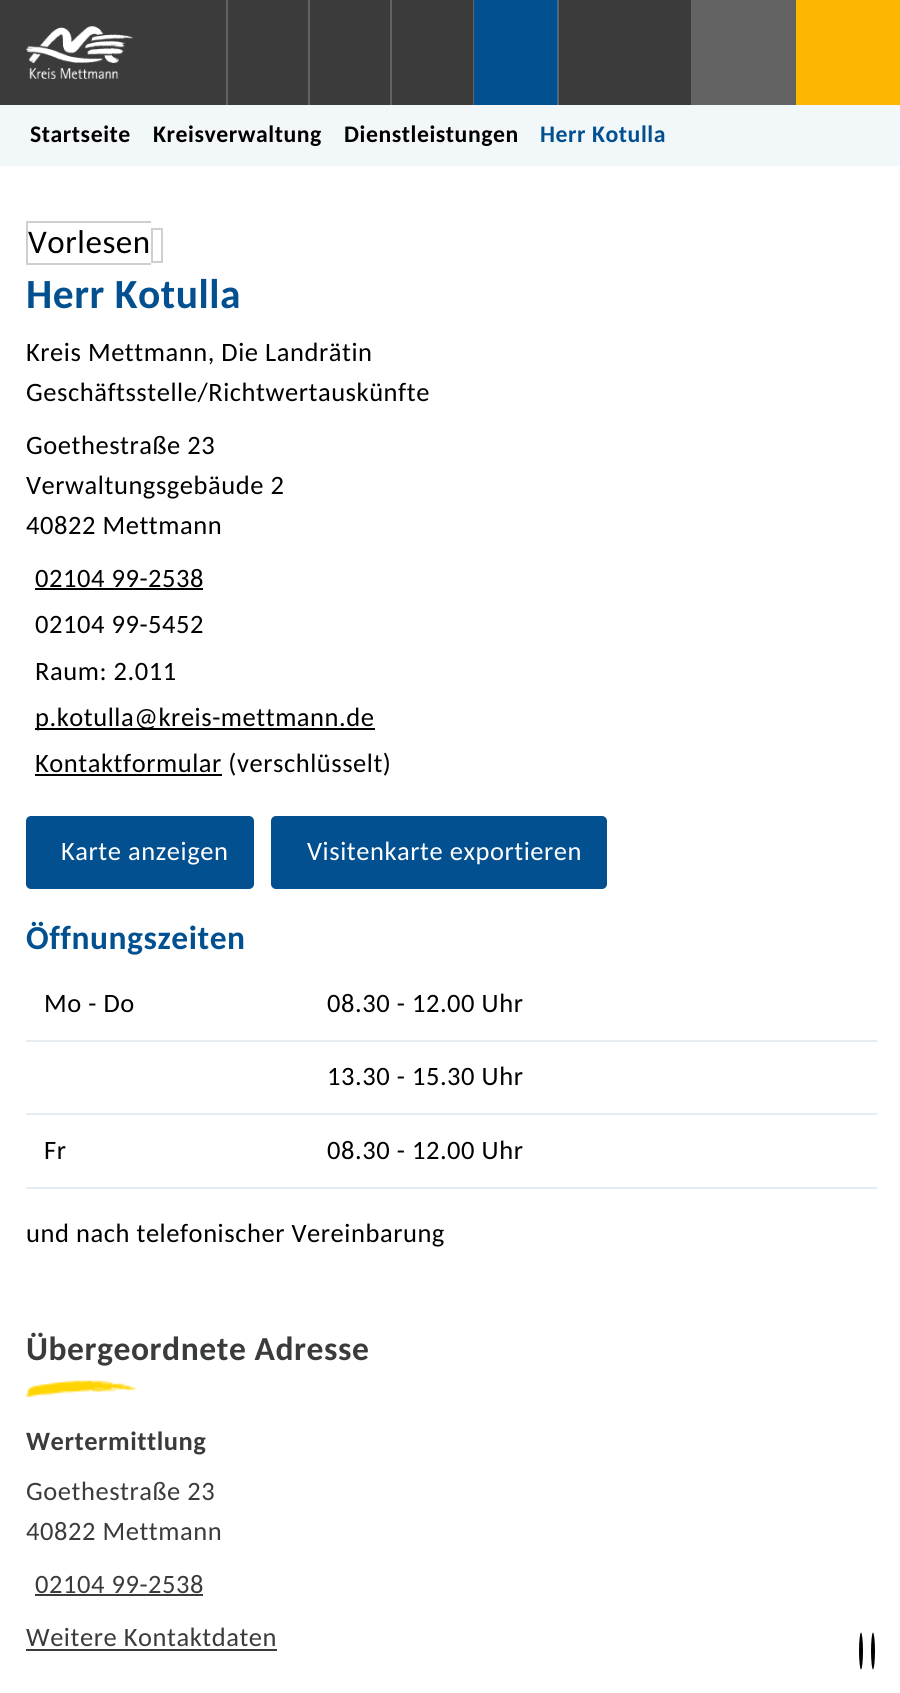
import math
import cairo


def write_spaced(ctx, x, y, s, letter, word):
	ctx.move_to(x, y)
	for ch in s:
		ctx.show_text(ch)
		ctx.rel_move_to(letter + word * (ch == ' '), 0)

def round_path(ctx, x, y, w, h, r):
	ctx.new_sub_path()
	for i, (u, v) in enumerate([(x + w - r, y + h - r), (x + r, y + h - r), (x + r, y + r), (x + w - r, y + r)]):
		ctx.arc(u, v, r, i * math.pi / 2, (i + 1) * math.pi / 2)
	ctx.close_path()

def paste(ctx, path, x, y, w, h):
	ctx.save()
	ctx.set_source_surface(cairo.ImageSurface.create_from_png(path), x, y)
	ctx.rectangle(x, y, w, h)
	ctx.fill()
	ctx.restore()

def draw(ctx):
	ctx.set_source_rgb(0.231, 0.231, 0.231)
	ctx.paint()
	ctx.set_source_rgb(0.384, 0.384, 0.384)
	ctx.rectangle(558, 0, 1, 105)
	ctx.fill()
	paste(ctx, 'media/1.png', 26, 26, 107, 53)
	ctx.rectangle(308, 0, 2, 105)
	ctx.rectangle(226, 0, 2, 105)
	ctx.rectangle(390, 0, 2, 105)
	ctx.rectangle(473, 0, 1, 105)
	ctx.fill()
	ctx.set_source_rgb(0.008, 0.314, 0.565)
	ctx.rectangle(474, 0, 83, 105)
	ctx.fill()
	ctx.set_source_rgb(0.208, 0.451, 0.651)
	ctx.rectangle(557, 0, 1, 105)
	ctx.fill()
	ctx.set_source_rgb(0.388, 0.388, 0.388)
	ctx.rectangle(691, 0, 105, 105)
	ctx.fill()
	ctx.set_source_rgb(0.988, 0.718, 0.012)
	ctx.rectangle(796, 0, 104, 105)
	ctx.fill()
	ctx.set_source_rgb(0.949, 0.965, 0.976)
	ctx.rectangle(0, 105, 900, 61)
	ctx.fill()
	ctx.select_font_face('Carlito', cairo.FONT_SLANT_NORMAL, cairo.FONT_WEIGHT_BOLD)
	ctx.set_font_size(23.75)
	ctx.set_source_rgb(0, 0, 0)
	for x, y, s in [
		(30, 142, 'Startseite'),
		(153, 142, 'Kreisverwaltung'),
		(344, 142, 'Dienstleistungen'),
	]:
		write_spaced(ctx, x, y, s, 0.55, 0)
	ctx.set_source_rgb(0.008, 0.314, 0.565)
	write_spaced(ctx, 540, 142, 'Herr Kotulla', 0.55, 0)
	ctx.set_source_rgb(1, 1, 1)
	ctx.rectangle(0, 166, 900, 1527)
	ctx.fill()
	ctx.select_font_face('Carlito')
	ctx.set_font_size(33)
	ctx.set_source_rgb(0, 0, 0)
	write_spaced(ctx, 28, 253, 'Vorlesen', 0.55, 0)
	ctx.set_source_rgb(0.812, 0.812, 0.812)
	ctx.rectangle(26, 221, 125, 2)
	ctx.rectangle(26, 263, 125, 2)
	ctx.rectangle(26, 221, 2, 43)
	ctx.rectangle(151, 228, 12, 2)
	ctx.rectangle(161, 228, 2, 35)
	ctx.rectangle(151, 261, 12, 2)
	ctx.rectangle(151, 229, 2, 32)
	ctx.fill()
	ctx.select_font_face('Carlito', cairo.FONT_SLANT_NORMAL, cairo.FONT_WEIGHT_BOLD)
	ctx.set_font_size(41.5)
	ctx.set_source_rgb(0.008, 0.314, 0.565)
	write_spaced(ctx, 26, 308, 'Herr Kotulla', 0.55, 0)
	ctx.select_font_face('Carlito')
	ctx.set_font_size(26.5)
	ctx.set_source_rgb(0, 0, 0)
	for x, y, s in [
		(26, 361, 'Kreis Mettmann, Die Landrätin'),
		(26, 401, 'Geschäftsstelle/Richtwertauskünfte'),
		(26, 454, 'Goethestraße 23'),
		(26, 494, 'Verwaltungsgebäude 2'),
		(26, 534, '40822 Mettmann'),
		(35, 587, '02104 99-2538'),
	]:
		write_spaced(ctx, x, y, s, 0.55, 0)
	ctx.rectangle(35, 588, 168, 2)
	ctx.fill()
	write_spaced(ctx, 35, 633, '02104 99-5452', 0.55, 0)
	write_spaced(ctx, 35, 680, 'Raum: 2.011', 0.55, 0)
	ctx.rectangle(35, 728, 340, 2)
	ctx.fill()
	write_spaced(ctx, 35, 726, 'p.kotulla@kreis-mettmann.de', 0.55, 0)
	ctx.rectangle(35, 774, 187, 2)
	ctx.fill()
	write_spaced(ctx, 35, 772, 'Kontaktformular (verschlüsselt)', 0.55, 0)
	ctx.set_source_rgb(0.008, 0.314, 0.565)
	round_path(ctx, 26, 816, 228, 73, 5)
	ctx.fill()
	ctx.set_source_rgb(1, 1, 1)
	write_spaced(ctx, 61, 860, 'Karte anzeigen', 0.55, 0)
	ctx.set_source_rgb(0.008, 0.314, 0.565)
	round_path(ctx, 271, 816, 336, 73, 5)
	ctx.fill()
	ctx.set_source_rgb(1, 1, 1)
	write_spaced(ctx, 307, 860, 'Visitenkarte exportieren', 0.55, 0)
	ctx.select_font_face('Carlito', cairo.FONT_SLANT_NORMAL, cairo.FONT_WEIGHT_BOLD)
	ctx.set_font_size(33.5)
	ctx.set_source_rgb(0.008, 0.314, 0.565)
	write_spaced(ctx, 26, 949, 'Öffnungszeiten', 0.55, 0)
	ctx.set_source_rgb(0.898, 0.929, 0.953)
	ctx.rectangle(26, 1040, 851, 2)
	ctx.fill()
	ctx.select_font_face('Carlito')
	ctx.set_font_size(26.5)
	ctx.set_source_rgb(0, 0, 0)
	write_spaced(ctx, 44, 1012, 'Mo - Do', 0.55, 0)
	write_spaced(ctx, 327, 1012, '08.30 - 12.00 Uhr', 0.55, 0)
	ctx.set_source_rgb(0.898, 0.929, 0.953)
	ctx.rectangle(26, 1113, 851, 2)
	ctx.fill()
	ctx.set_source_rgb(0, 0, 0)
	write_spaced(ctx, 327, 1085, '13.30 - 15.30 Uhr', 0.55, 0)
	ctx.set_source_rgb(0.898, 0.929, 0.953)
	ctx.rectangle(26, 1187, 851, 2)
	ctx.fill()
	ctx.set_source_rgb(0, 0, 0)
	for x, y, s in [
		(44, 1159, 'Fr'),
		(327, 1159, '08.30 - 12.00 Uhr'),
		(26, 1242, 'und nach telefonischer Vereinbarung'),
	]:
		write_spaced(ctx, x, y, s, 0.55, 0)
	ctx.select_font_face('Carlito', cairo.FONT_SLANT_NORMAL, cairo.FONT_WEIGHT_BOLD)
	ctx.set_font_size(33.6)
	ctx.set_source_rgb(0.227, 0.231, 0.231)
	write_spaced(ctx, 26, 1360, 'Übergeordnete Adresse', 0.55, 0)
	paste(ctx, 'media/2.png', 26, 1380, 111, 19)
	ctx.set_font_size(26.5)
	write_spaced(ctx, 26, 1450, 'Wertermittlung', 0.55, 0)
	ctx.select_font_face('Carlito')
	for x, y, s in [
		(26, 1500, 'Goethestraße 23'),
		(26, 1540, '40822 Mettmann'),
		(35, 1593, '02104 99-2538'),
	]:
		write_spaced(ctx, x, y, s, 0.55, 0)
	ctx.rectangle(35, 1594, 168, 2)
	ctx.fill()
	write_spaced(ctx, 26, 1646, 'Weitere Kontaktdaten', 0.55, 0)
	ctx.rectangle(26, 1649, 251, 2)
	ctx.fill()
	ctx.set_source_rgb(0, 0, 0)
	ctx.new_path()
	ctx.move_to(861, 1632.5)
	ctx.curve_to(862, 1632.5, 863, 1641, 863, 1651)
	ctx.curve_to(863, 1661, 862, 1669.5, 861, 1669.5)
	ctx.curve_to(860, 1669.5, 859, 1661, 859, 1651)
	ctx.curve_to(859, 1641, 860, 1632.5, 861, 1632.5)
	ctx.close_path()
	ctx.fill()
	ctx.new_path()
	ctx.move_to(873, 1632.5)
	ctx.curve_to(874, 1632.5, 875, 1641, 875, 1651)
	ctx.curve_to(875, 1661, 874, 1669.5, 873, 1669.5)
	ctx.curve_to(872, 1669.5, 871, 1661, 871, 1651)
	ctx.curve_to(871, 1641, 872, 1632.5, 873, 1632.5)
	ctx.close_path()
	ctx.fill()


surface = cairo.ImageSurface(cairo.FORMAT_RGB24, 900, 1693)
ctx = cairo.Context(surface)
options = cairo.FontOptions()
options.set_hint_metrics(cairo.HINT_METRICS_OFF)
options.set_hint_style(cairo.HINT_STYLE_NONE)
ctx.set_font_options(options)
ctx.set_miter_limit(4)
draw(ctx)
surface.write_to_png('image.png')
